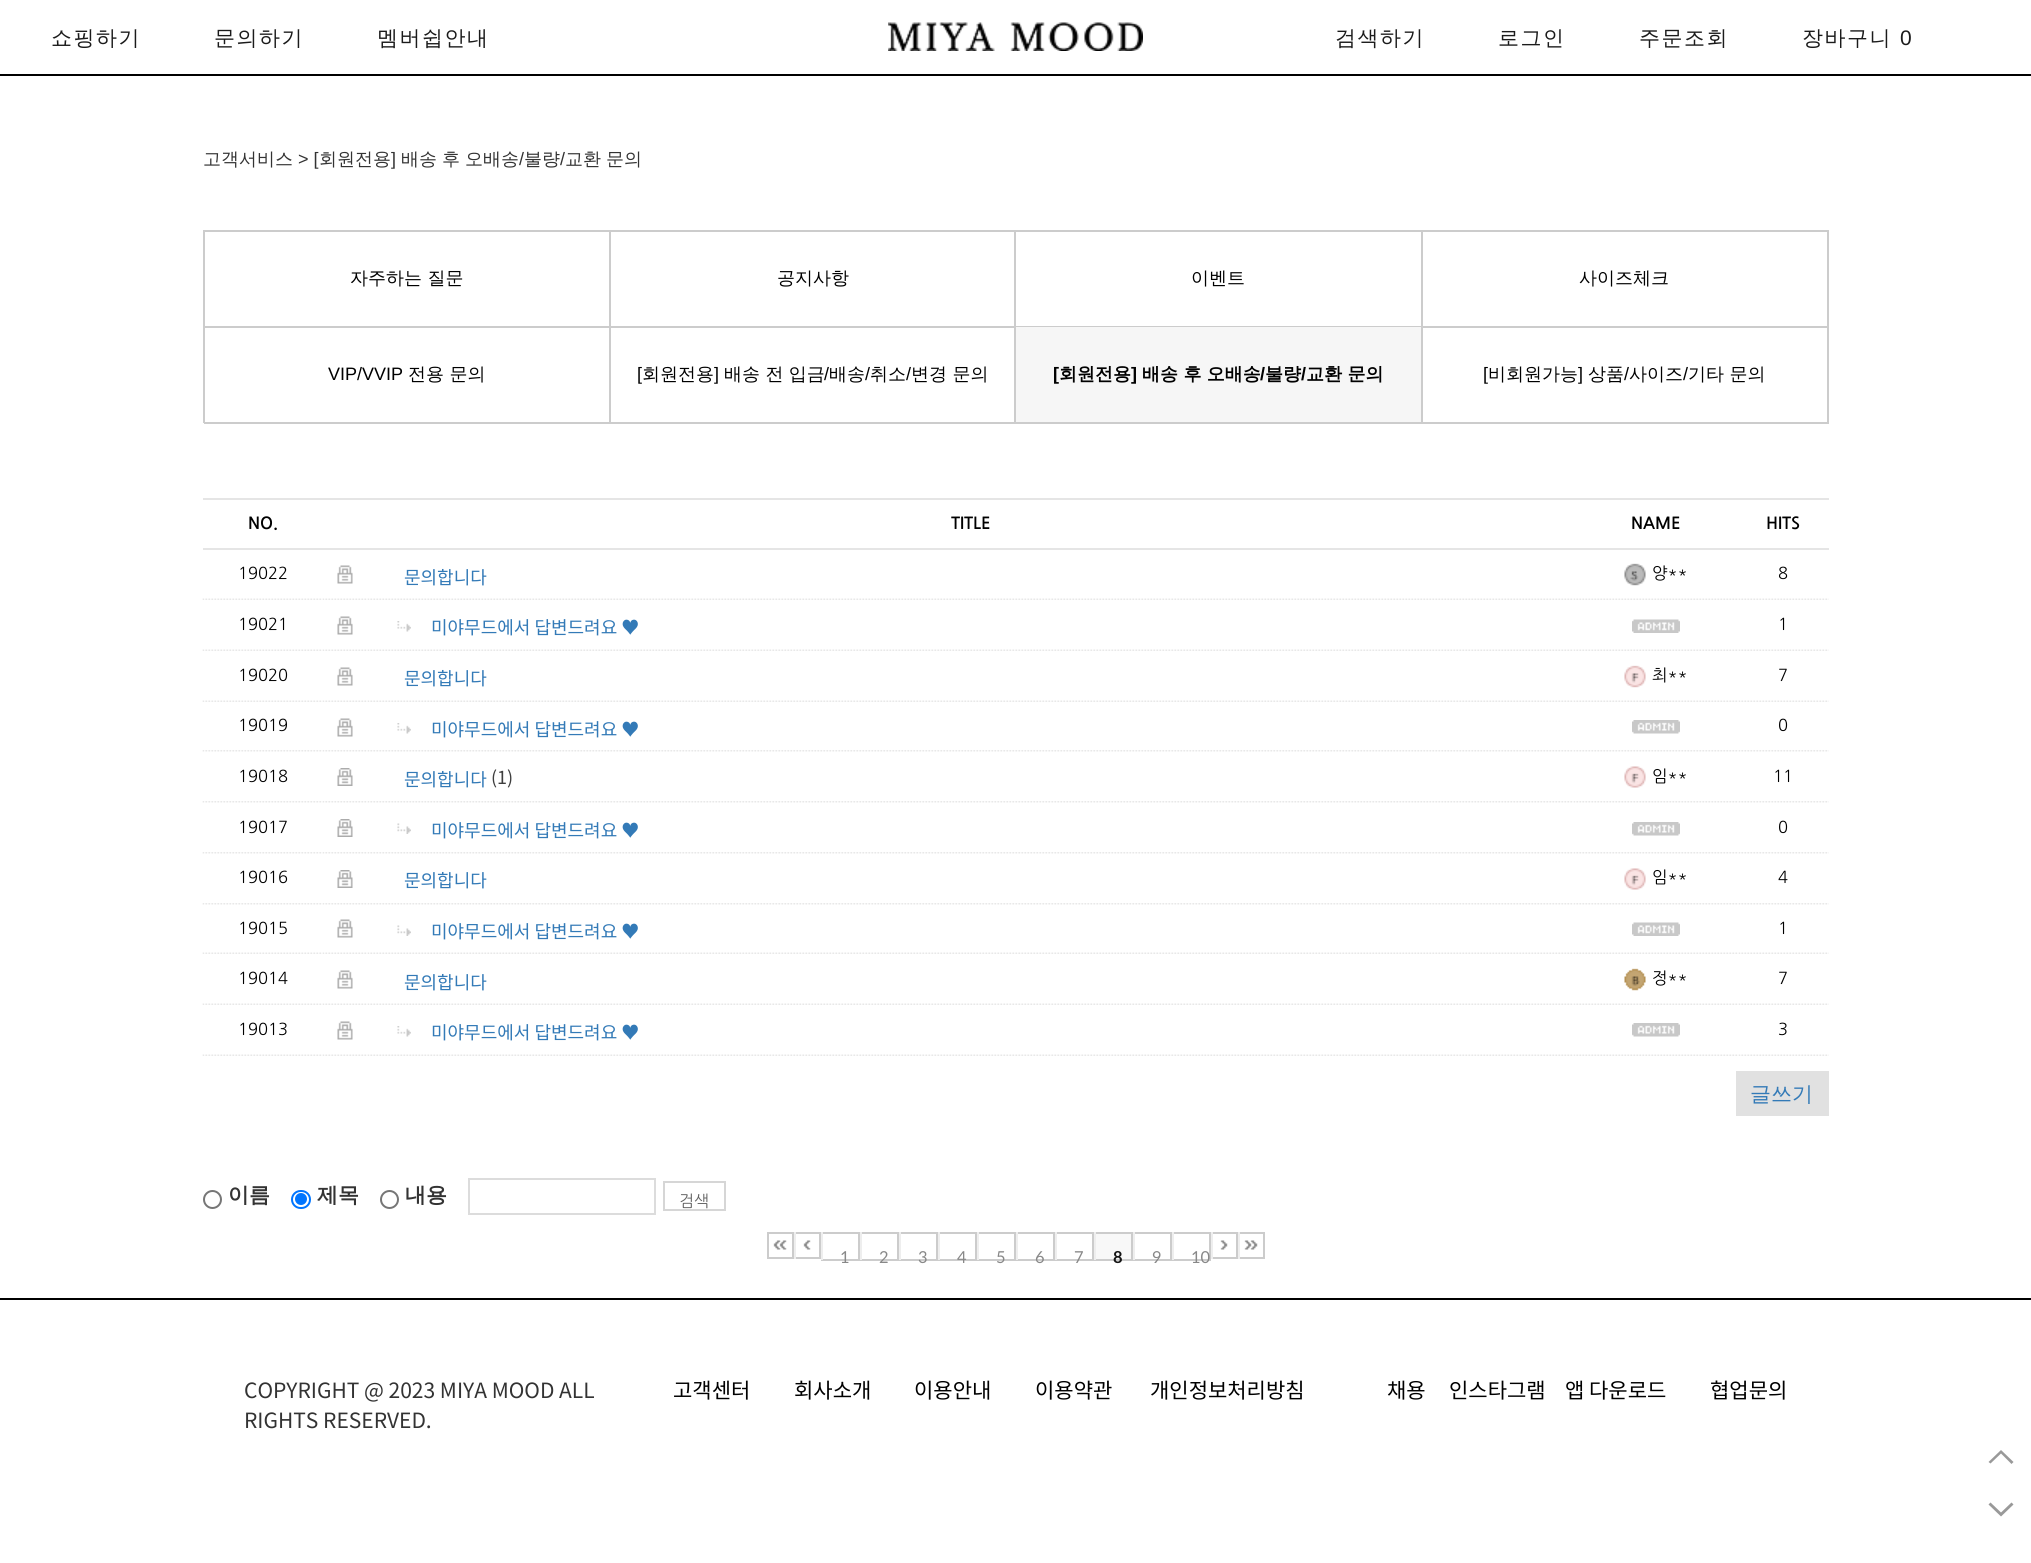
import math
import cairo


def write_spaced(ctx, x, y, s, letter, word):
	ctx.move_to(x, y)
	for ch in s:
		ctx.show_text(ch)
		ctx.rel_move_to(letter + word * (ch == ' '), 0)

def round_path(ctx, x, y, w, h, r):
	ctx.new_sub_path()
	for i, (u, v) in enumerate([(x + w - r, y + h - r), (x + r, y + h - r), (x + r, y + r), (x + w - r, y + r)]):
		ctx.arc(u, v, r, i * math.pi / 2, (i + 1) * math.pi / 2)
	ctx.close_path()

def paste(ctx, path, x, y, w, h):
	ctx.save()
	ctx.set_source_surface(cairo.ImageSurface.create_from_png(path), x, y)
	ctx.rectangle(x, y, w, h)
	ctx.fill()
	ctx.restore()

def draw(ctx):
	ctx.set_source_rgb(1, 1, 1)
	ctx.paint()
	ctx.set_source_rgb(0, 0, 0)
	ctx.rectangle(0, 74, 2031, 2)
	ctx.fill()
	ctx.select_font_face('WenQuanYi Zen Hei Medium')
	ctx.set_font_size(21)
	ctx.set_source_rgb(0.106, 0.106, 0.106)
	for x, y, s in [
		(51, 45, '쇼핑하기'),
		(214, 45, '문의하기'),
		(377, 45, '멤버쉽안내'),
	]:
		write_spaced(ctx, x, y, s, 1.5, 0)
	paste(ctx, 'media/1.png', 888, 22, 255, 29)
	for x, y, s in [
		(1335, 45, '검색하기'),
		(1498, 45, '로그인'),
		(1639, 45, '주문조회'),
		(1802, 45, '장바구니'),
	]:
		write_spaced(ctx, x, y, s, 1.5, 0)
	ctx.select_font_face('Liberation Sans')
	write_spaced(ctx, 1900, 45, '0', 1.5, 0)
	ctx.select_font_face('WenQuanYi Zen Hei Medium')
	ctx.set_font_size(18)
	ctx.set_source_rgb(0.2, 0.2, 0.2)
	ctx.move_to(203, 165)
	ctx.show_text('고객서비스')
	ctx.select_font_face('Liberation Sans')
	ctx.move_to(298, 165)
	ctx.show_text('> [')
	ctx.select_font_face('WenQuanYi Zen Hei Medium')
	ctx.move_to(319, 165)
	ctx.show_text('회원전용')
	ctx.select_font_face('Liberation Sans')
	ctx.move_to(391, 165)
	ctx.show_text(']')
	ctx.select_font_face('WenQuanYi Zen Hei Medium')
	for x, y, s in [
		(401, 165, '배송'),
		(442, 165, '후'),
		(465, 165, '오배송'),
	]:
		ctx.move_to(x, y)
		ctx.show_text(s)
	ctx.select_font_face('Liberation Sans')
	ctx.move_to(519, 165)
	ctx.show_text('/')
	ctx.select_font_face('WenQuanYi Zen Hei Medium')
	ctx.move_to(524, 165)
	ctx.show_text('불량')
	ctx.select_font_face('Liberation Sans')
	ctx.move_to(560, 165)
	ctx.show_text('/')
	ctx.select_font_face('WenQuanYi Zen Hei Medium')
	ctx.move_to(565, 165)
	ctx.show_text('교환')
	ctx.move_to(606, 165)
	ctx.show_text('문의')
	ctx.set_source_rgb(0.8, 0.8, 0.8)
	ctx.rectangle(203, 230, 1626, 2)
	ctx.rectangle(203, 230, 2, 193)
	ctx.rectangle(609, 231, 2, 96)
	ctx.rectangle(204, 326, 407, 2)
	ctx.fill()
	ctx.set_source_rgb(0, 0, 0)
	ctx.move_to(350, 284)
	ctx.show_text('자주하는 질문')
	ctx.set_source_rgb(0.8, 0.8, 0.8)
	ctx.rectangle(1014, 231, 2, 96)
	ctx.fill()
	ctx.rectangle(611, 326, 405, 2)
	ctx.fill()
	ctx.set_source_rgb(0, 0, 0)
	ctx.move_to(777, 284)
	ctx.show_text('공지사항')
	ctx.set_source_rgb(0.8, 0.8, 0.8)
	ctx.rectangle(1421, 231, 2, 96)
	ctx.fill()
	ctx.rectangle(1016, 326, 406, 1)
	ctx.fill()
	ctx.set_source_rgb(0, 0, 0)
	ctx.move_to(1191, 284)
	ctx.show_text('이벤트')
	ctx.set_source_rgb(0.8, 0.8, 0.8)
	ctx.rectangle(1827, 231, 2, 96)
	ctx.fill()
	ctx.rectangle(1422, 326, 407, 2)
	ctx.fill()
	ctx.set_source_rgb(0, 0, 0)
	ctx.move_to(1579, 284)
	ctx.show_text('사이즈체크')
	ctx.set_source_rgb(0.8, 0.8, 0.8)
	ctx.rectangle(609, 327, 2, 96)
	ctx.fill()
	ctx.rectangle(204, 422, 407, 2)
	ctx.fill()
	ctx.select_font_face('Liberation Sans')
	ctx.set_source_rgb(0, 0, 0)
	ctx.move_to(328, 380)
	ctx.show_text('VIP/VVIP')
	ctx.select_font_face('WenQuanYi Zen Hei Medium')
	ctx.move_to(408, 380)
	ctx.show_text('전용 문의')
	ctx.set_source_rgb(0.8, 0.8, 0.8)
	ctx.rectangle(1014, 327, 2, 96)
	ctx.fill()
	ctx.rectangle(611, 422, 405, 2)
	ctx.fill()
	ctx.select_font_face('Liberation Sans')
	ctx.set_source_rgb(0, 0, 0)
	ctx.move_to(637, 380)
	ctx.show_text('[')
	ctx.select_font_face('WenQuanYi Zen Hei Medium')
	ctx.move_to(642, 380)
	ctx.show_text('회원전용')
	ctx.select_font_face('Liberation Sans')
	ctx.move_to(714, 380)
	ctx.show_text(']')
	ctx.select_font_face('WenQuanYi Zen Hei Medium')
	ctx.move_to(724, 380)
	ctx.show_text('배송 전 입금')
	ctx.select_font_face('Liberation Sans')
	ctx.move_to(824, 380)
	ctx.show_text('/')
	ctx.select_font_face('WenQuanYi Zen Hei Medium')
	ctx.move_to(829, 380)
	ctx.show_text('배송')
	ctx.select_font_face('Liberation Sans')
	ctx.move_to(865, 380)
	ctx.show_text('/')
	ctx.select_font_face('WenQuanYi Zen Hei Medium')
	ctx.move_to(870, 380)
	ctx.show_text('취소')
	ctx.select_font_face('Liberation Sans')
	ctx.move_to(906, 380)
	ctx.show_text('/')
	ctx.select_font_face('WenQuanYi Zen Hei Medium')
	ctx.move_to(911, 380)
	ctx.show_text('변경 문의')
	ctx.set_source_rgb(0.961, 0.961, 0.961)
	ctx.rectangle(1016, 327, 405, 95)
	ctx.fill()
	ctx.set_source_rgb(0.8, 0.8, 0.8)
	ctx.rectangle(1421, 327, 2, 96)
	ctx.rectangle(1016, 422, 406, 2)
	ctx.fill()
	ctx.select_font_face('Liberation Sans', cairo.FONT_SLANT_NORMAL, cairo.FONT_WEIGHT_BOLD)
	ctx.set_source_rgb(0, 0, 0)
	ctx.move_to(1053, 380)
	ctx.show_text('[')
	ctx.select_font_face('WenQuanYi Zen Hei', cairo.FONT_SLANT_NORMAL, cairo.FONT_WEIGHT_BOLD)
	ctx.move_to(1059, 380)
	ctx.show_text('회원전용')
	ctx.select_font_face('Liberation Sans', cairo.FONT_SLANT_NORMAL, cairo.FONT_WEIGHT_BOLD)
	ctx.move_to(1131, 380)
	ctx.show_text(']')
	ctx.select_font_face('WenQuanYi Zen Hei', cairo.FONT_SLANT_NORMAL, cairo.FONT_WEIGHT_BOLD)
	ctx.move_to(1142, 380)
	ctx.show_text('배송 후 오배송')
	ctx.select_font_face('Liberation Sans', cairo.FONT_SLANT_NORMAL, cairo.FONT_WEIGHT_BOLD)
	ctx.move_to(1260, 380)
	ctx.show_text('/')
	ctx.select_font_face('WenQuanYi Zen Hei', cairo.FONT_SLANT_NORMAL, cairo.FONT_WEIGHT_BOLD)
	ctx.move_to(1265, 380)
	ctx.show_text('불량')
	ctx.select_font_face('Liberation Sans', cairo.FONT_SLANT_NORMAL, cairo.FONT_WEIGHT_BOLD)
	ctx.move_to(1301, 380)
	ctx.show_text('/')
	ctx.select_font_face('WenQuanYi Zen Hei', cairo.FONT_SLANT_NORMAL, cairo.FONT_WEIGHT_BOLD)
	ctx.move_to(1306, 380)
	ctx.show_text('교환 문의')
	ctx.set_source_rgb(0.8, 0.8, 0.8)
	ctx.rectangle(1827, 327, 2, 96)
	ctx.fill()
	ctx.rectangle(1422, 422, 407, 2)
	ctx.fill()
	ctx.select_font_face('Liberation Sans')
	ctx.set_source_rgb(0, 0, 0)
	ctx.move_to(1483, 380)
	ctx.show_text('[')
	ctx.select_font_face('WenQuanYi Zen Hei Medium')
	ctx.move_to(1488, 380)
	ctx.show_text('비회원가능')
	ctx.select_font_face('Liberation Sans')
	ctx.move_to(1578, 380)
	ctx.show_text(']')
	ctx.select_font_face('WenQuanYi Zen Hei Medium')
	ctx.move_to(1588, 380)
	ctx.show_text('상품')
	ctx.select_font_face('Liberation Sans')
	ctx.move_to(1624, 380)
	ctx.show_text('/')
	ctx.select_font_face('WenQuanYi Zen Hei Medium')
	ctx.move_to(1629, 380)
	ctx.show_text('사이즈')
	ctx.select_font_face('Liberation Sans')
	ctx.move_to(1683, 380)
	ctx.show_text('/')
	ctx.select_font_face('WenQuanYi Zen Hei Medium')
	ctx.move_to(1688, 380)
	ctx.show_text('기타 문의')
	ctx.select_font_face('NanumGothic', cairo.FONT_SLANT_NORMAL, cairo.FONT_WEIGHT_BOLD)
	ctx.set_font_size(16.5)
	for x, y, s in [
		(248, 529, 'NO.'),
		(951, 529, 'TITLE'),
		(1631, 529, 'NAME'),
	]:
		ctx.move_to(x, y)
		ctx.show_text(s)
	ctx.set_source_rgb(0.898, 0.898, 0.898)
	ctx.rectangle(203, 498, 1626, 2)
	ctx.fill()
	ctx.rectangle(203, 548, 1626, 2)
	ctx.fill()
	ctx.set_source_rgb(0, 0, 0)
	ctx.move_to(1766, 529)
	ctx.show_text('HITS')
	paste(ctx, 'media/2.png', 202, 598, 121, 2)
	ctx.select_font_face('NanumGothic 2')
	ctx.move_to(238, 579)
	ctx.show_text('19022')
	paste(ctx, 'media/3.png', 323, 598, 45, 2)
	paste(ctx, 'media/4.png', 337, 565, 16, 19)
	paste(ctx, 'media/5.png', 368, 598, 1206, 2)
	ctx.select_font_face('Noto Sans KR')
	ctx.set_font_size(18)
	ctx.set_source_rgb(0.2, 0.478, 0.718)
	ctx.move_to(404, 584)
	ctx.show_text('문의합니다')
	paste(ctx, 'media/6.png', 1574, 598, 165, 2)
	paste(ctx, 'media/7.png', 1624, 563, 22, 23)
	ctx.select_font_face('NanumGothic 2')
	ctx.set_font_size(16.5)
	ctx.set_source_rgb(0, 0, 0)
	ctx.move_to(1652, 579)
	ctx.show_text('양**')
	paste(ctx, 'media/8.png', 1739, 598, 90, 2)
	ctx.move_to(1778, 579)
	ctx.show_text('8')
	paste(ctx, 'media/2.png', 202, 649, 121, 2)
	ctx.move_to(238, 630)
	ctx.show_text('19021')
	paste(ctx, 'media/3.png', 323, 649, 45, 2)
	paste(ctx, 'media/4.png', 337, 616, 16, 19)
	paste(ctx, 'media/5.png', 368, 649, 1206, 2)
	paste(ctx, 'media/9.png', 397, 621, 14, 11)
	ctx.select_font_face('Noto Sans KR')
	ctx.set_font_size(18)
	ctx.set_source_rgb(0.2, 0.478, 0.718)
	ctx.move_to(431, 634)
	ctx.show_text('미야무드에서 답변드려요 ♥')
	paste(ctx, 'media/6.png', 1574, 649, 165, 2)
	paste(ctx, 'media/10.png', 1632, 619, 48, 14)
	paste(ctx, 'media/8.png', 1739, 649, 90, 2)
	ctx.select_font_face('NanumGothic 2')
	ctx.set_font_size(16.5)
	ctx.set_source_rgb(0, 0, 0)
	ctx.move_to(1778, 630)
	ctx.show_text('1')
	paste(ctx, 'media/2.png', 202, 700, 121, 2)
	ctx.move_to(238, 681)
	ctx.show_text('19020')
	paste(ctx, 'media/3.png', 323, 700, 45, 2)
	paste(ctx, 'media/4.png', 337, 667, 16, 19)
	paste(ctx, 'media/5.png', 368, 700, 1206, 2)
	ctx.select_font_face('Noto Sans KR')
	ctx.set_font_size(18)
	ctx.set_source_rgb(0.2, 0.478, 0.718)
	ctx.move_to(404, 685)
	ctx.show_text('문의합니다')
	paste(ctx, 'media/6.png', 1574, 700, 165, 2)
	paste(ctx, 'media/11.png', 1624, 665, 22, 23)
	ctx.select_font_face('NanumGothic 2')
	ctx.set_font_size(16.5)
	ctx.set_source_rgb(0, 0, 0)
	ctx.move_to(1652, 681)
	ctx.show_text('최**')
	paste(ctx, 'media/8.png', 1739, 700, 90, 2)
	ctx.move_to(1778, 681)
	ctx.show_text('7')
	paste(ctx, 'media/12.png', 202, 750, 121, 2)
	ctx.move_to(238, 731)
	ctx.show_text('19019')
	paste(ctx, 'media/13.png', 323, 750, 45, 2)
	paste(ctx, 'media/4.png', 337, 718, 16, 19)
	paste(ctx, 'media/14.png', 368, 750, 1206, 2)
	paste(ctx, 'media/9.png', 397, 723, 14, 11)
	ctx.select_font_face('Noto Sans KR')
	ctx.set_font_size(18)
	ctx.set_source_rgb(0.2, 0.478, 0.718)
	ctx.move_to(431, 736)
	ctx.show_text('미야무드에서 답변드려요 ♥')
	paste(ctx, 'media/15.png', 1574, 750, 165, 2)
	paste(ctx, 'media/16.png', 1632, 720, 48, 14)
	paste(ctx, 'media/17.png', 1739, 750, 90, 2)
	ctx.select_font_face('NanumGothic 2')
	ctx.set_font_size(16.5)
	ctx.set_source_rgb(0, 0, 0)
	ctx.move_to(1778, 731)
	ctx.show_text('0')
	paste(ctx, 'media/12.png', 202, 801, 121, 2)
	ctx.move_to(238, 782)
	ctx.show_text('19018')
	paste(ctx, 'media/13.png', 323, 801, 45, 2)
	paste(ctx, 'media/18.png', 337, 768, 16, 18)
	paste(ctx, 'media/14.png', 368, 801, 1206, 2)
	ctx.select_font_face('Noto Sans KR')
	ctx.set_font_size(18)
	ctx.set_source_rgb(0.2, 0.478, 0.718)
	ctx.move_to(404, 786)
	ctx.show_text('문의합니다')
	ctx.set_source_rgb(0.243, 0.243, 0.243)
	ctx.move_to(491, 784)
	ctx.show_text('(1)')
	paste(ctx, 'media/15.png', 1574, 801, 165, 2)
	paste(ctx, 'media/19.png', 1624, 766, 22, 22)
	ctx.select_font_face('NanumGothic 2')
	ctx.set_font_size(16.5)
	ctx.set_source_rgb(0, 0, 0)
	ctx.move_to(1652, 782)
	ctx.show_text('임**')
	paste(ctx, 'media/17.png', 1739, 801, 90, 2)
	ctx.move_to(1773, 782)
	ctx.show_text('11')
	paste(ctx, 'media/12.png', 202, 852, 121, 2)
	ctx.move_to(238, 833)
	ctx.show_text('19017')
	paste(ctx, 'media/13.png', 323, 852, 45, 2)
	paste(ctx, 'media/18.png', 337, 819, 16, 18)
	paste(ctx, 'media/14.png', 368, 852, 1206, 2)
	paste(ctx, 'media/20.png', 397, 823, 14, 11)
	ctx.select_font_face('Noto Sans KR')
	ctx.set_font_size(18)
	ctx.set_source_rgb(0.2, 0.478, 0.718)
	ctx.move_to(431, 837)
	ctx.show_text('미야무드에서 답변드려요 ♥')
	paste(ctx, 'media/15.png', 1574, 852, 165, 2)
	paste(ctx, 'media/16.png', 1632, 822, 48, 14)
	paste(ctx, 'media/17.png', 1739, 852, 90, 2)
	ctx.select_font_face('NanumGothic 2')
	ctx.set_font_size(16.5)
	ctx.set_source_rgb(0, 0, 0)
	ctx.move_to(1778, 833)
	ctx.show_text('0')
	paste(ctx, 'media/12.png', 202, 903, 121, 2)
	ctx.move_to(238, 883)
	ctx.show_text('19016')
	paste(ctx, 'media/13.png', 323, 903, 45, 2)
	paste(ctx, 'media/18.png', 337, 870, 16, 18)
	paste(ctx, 'media/14.png', 368, 903, 1206, 2)
	ctx.select_font_face('Noto Sans KR')
	ctx.set_font_size(18)
	ctx.set_source_rgb(0.2, 0.478, 0.718)
	ctx.move_to(404, 887)
	ctx.show_text('문의합니다')
	paste(ctx, 'media/15.png', 1574, 903, 165, 2)
	paste(ctx, 'media/19.png', 1624, 868, 22, 22)
	ctx.select_font_face('NanumGothic 2')
	ctx.set_font_size(16.5)
	ctx.set_source_rgb(0, 0, 0)
	ctx.move_to(1652, 883)
	ctx.show_text('임**')
	paste(ctx, 'media/17.png', 1739, 903, 90, 2)
	ctx.move_to(1778, 883)
	ctx.show_text('4')
	paste(ctx, 'media/2.png', 202, 952, 121, 2)
	ctx.move_to(238, 934)
	ctx.show_text('19015')
	paste(ctx, 'media/3.png', 323, 952, 45, 2)
	paste(ctx, 'media/4.png', 337, 919, 16, 19)
	paste(ctx, 'media/5.png', 368, 952, 1206, 2)
	paste(ctx, 'media/20.png', 397, 925, 14, 11)
	ctx.select_font_face('Noto Sans KR')
	ctx.set_font_size(18)
	ctx.set_source_rgb(0.2, 0.478, 0.718)
	ctx.move_to(431, 938)
	ctx.show_text('미야무드에서 답변드려요 ♥')
	paste(ctx, 'media/6.png', 1574, 952, 165, 2)
	paste(ctx, 'media/10.png', 1632, 922, 48, 14)
	paste(ctx, 'media/8.png', 1739, 952, 90, 2)
	ctx.select_font_face('NanumGothic 2')
	ctx.set_font_size(16.5)
	ctx.set_source_rgb(0, 0, 0)
	ctx.move_to(1778, 934)
	ctx.show_text('1')
	paste(ctx, 'media/2.png', 202, 1003, 121, 2)
	ctx.move_to(238, 984)
	ctx.show_text('19014')
	paste(ctx, 'media/3.png', 323, 1003, 45, 2)
	paste(ctx, 'media/4.png', 337, 970, 16, 19)
	paste(ctx, 'media/5.png', 368, 1003, 1206, 2)
	ctx.select_font_face('Noto Sans KR')
	ctx.set_font_size(18)
	ctx.set_source_rgb(0.2, 0.478, 0.718)
	ctx.move_to(404, 989)
	ctx.show_text('문의합니다')
	paste(ctx, 'media/6.png', 1574, 1003, 165, 2)
	paste(ctx, 'media/21.png', 1624, 968, 22, 23)
	ctx.select_font_face('NanumGothic 2')
	ctx.set_font_size(16.5)
	ctx.set_source_rgb(0, 0, 0)
	ctx.move_to(1652, 984)
	ctx.show_text('정**')
	paste(ctx, 'media/8.png', 1739, 1003, 90, 2)
	ctx.move_to(1778, 984)
	ctx.show_text('7')
	paste(ctx, 'media/2.png', 202, 1054, 121, 2)
	ctx.move_to(238, 1035)
	ctx.show_text('19013')
	paste(ctx, 'media/3.png', 323, 1054, 45, 2)
	paste(ctx, 'media/4.png', 337, 1021, 16, 19)
	paste(ctx, 'media/5.png', 368, 1054, 1206, 2)
	paste(ctx, 'media/9.png', 397, 1026, 14, 11)
	ctx.select_font_face('Noto Sans KR')
	ctx.set_font_size(18)
	ctx.set_source_rgb(0.2, 0.478, 0.718)
	ctx.move_to(431, 1039)
	ctx.show_text('미야무드에서 답변드려요 ♥')
	paste(ctx, 'media/6.png', 1574, 1054, 165, 2)
	paste(ctx, 'media/16.png', 1632, 1023, 48, 14)
	paste(ctx, 'media/8.png', 1739, 1054, 90, 2)
	ctx.select_font_face('NanumGothic 2')
	ctx.set_font_size(16.5)
	ctx.set_source_rgb(0, 0, 0)
	ctx.move_to(1778, 1035)
	ctx.show_text('3')
	ctx.set_source_rgb(0.882, 0.882, 0.882)
	ctx.rectangle(1736, 1071, 93, 45)
	ctx.fill()
	ctx.select_font_face('WenQuanYi Zen Hei Medium')
	ctx.set_font_size(21)
	ctx.set_source_rgb(0.2, 0.478, 0.718)
	ctx.move_to(1750, 1101)
	ctx.show_text('글쓰기')
	ctx.new_path()
	ctx.arc(212.5, 1199.5, 8.5, 0, 2 * math.pi)
	ctx.set_source_rgb(0.463, 0.463, 0.463)
	ctx.stroke()
	ctx.select_font_face('WenQuanYi Zen Hei', cairo.FONT_SLANT_NORMAL, cairo.FONT_WEIGHT_BOLD)
	ctx.set_source_rgb(0.2, 0.2, 0.2)
	ctx.move_to(228, 1202)
	ctx.show_text('이름')
	round_path(ctx, 292, 1191, 18, 17, 8.5)
	ctx.set_source_rgb(0, 0.459, 1)
	ctx.stroke()
	ctx.arc(301, 1199, 6, 0, 2 * math.pi)
	ctx.fill()
	ctx.set_source_rgb(0.2, 0.2, 0.2)
	ctx.move_to(317, 1202)
	ctx.show_text('제목')
	ctx.new_path()
	ctx.arc(389.5, 1199.5, 8.5, 0, 2 * math.pi)
	ctx.set_source_rgb(0.463, 0.463, 0.463)
	ctx.stroke()
	ctx.set_source_rgb(0.2, 0.2, 0.2)
	ctx.move_to(405, 1202)
	ctx.show_text('내용')
	ctx.rectangle(469, 1179, 186, 35)
	ctx.set_source_rgb(0.863, 0.863, 0.863)
	ctx.stroke()
	ctx.rectangle(664, 1182, 61, 28)
	ctx.set_source_rgb(0.839, 0.839, 0.839)
	ctx.stroke()
	ctx.select_font_face('NanumGothic')
	ctx.set_font_size(16)
	ctx.set_source_rgb(0.388, 0.388, 0.388)
	ctx.move_to(679, 1206)
	ctx.show_text('검색')
	paste(ctx, 'media/22.png', 773, 1240, 14, 10)
	ctx.rectangle(768, 1233, 25, 25)
	ctx.set_source_rgb(0.8, 0.8, 0.8)
	ctx.stroke()
	paste(ctx, 'media/23.png', 803, 1240, 8, 10)
	ctx.rectangle(794, 1232, 471, 2)
	ctx.rectangle(819, 1232, 2, 27)
	ctx.rectangle(794, 1257, 27, 2)
	ctx.fill()
	ctx.set_source_rgb(0.933, 0.933, 0.933)
	ctx.rectangle(794, 1232, 2, 27)
	ctx.fill()
	ctx.set_source_rgb(0.8, 0.8, 0.8)
	ctx.rectangle(858, 1232, 2, 28)
	ctx.rectangle(821, 1259, 39, 2)
	ctx.fill()
	ctx.set_source_rgb(0.933, 0.933, 0.933)
	ctx.rectangle(821, 1232, 2, 28)
	ctx.fill()
	ctx.select_font_face('Lato')
	ctx.set_font_size(16.5)
	ctx.set_source_rgb(0.533, 0.533, 0.533)
	ctx.move_to(840, 1263)
	ctx.show_text('1')
	ctx.set_source_rgb(0.8, 0.8, 0.8)
	ctx.rectangle(897, 1232, 2, 28)
	ctx.rectangle(860, 1259, 39, 2)
	ctx.fill()
	ctx.set_source_rgb(0.933, 0.933, 0.933)
	ctx.rectangle(860, 1232, 2, 28)
	ctx.fill()
	ctx.set_source_rgb(0.533, 0.533, 0.533)
	ctx.move_to(879, 1263)
	ctx.show_text('2')
	ctx.set_source_rgb(0.8, 0.8, 0.8)
	ctx.rectangle(936, 1232, 2, 28)
	ctx.rectangle(899, 1259, 39, 2)
	ctx.fill()
	ctx.set_source_rgb(0.933, 0.933, 0.933)
	ctx.rectangle(899, 1232, 2, 28)
	ctx.fill()
	ctx.set_source_rgb(0.533, 0.533, 0.533)
	ctx.move_to(918, 1263)
	ctx.show_text('3')
	ctx.set_source_rgb(0.8, 0.8, 0.8)
	ctx.rectangle(975, 1232, 2, 28)
	ctx.rectangle(938, 1259, 39, 2)
	ctx.fill()
	ctx.set_source_rgb(0.933, 0.933, 0.933)
	ctx.rectangle(938, 1232, 2, 28)
	ctx.fill()
	ctx.set_source_rgb(0.533, 0.533, 0.533)
	ctx.move_to(957, 1263)
	ctx.show_text('4')
	ctx.set_source_rgb(0.8, 0.8, 0.8)
	ctx.rectangle(1014, 1232, 2, 28)
	ctx.rectangle(977, 1259, 39, 2)
	ctx.fill()
	ctx.set_source_rgb(0.933, 0.933, 0.933)
	ctx.rectangle(977, 1232, 2, 28)
	ctx.fill()
	ctx.set_source_rgb(0.533, 0.533, 0.533)
	ctx.move_to(996, 1263)
	ctx.show_text('5')
	ctx.set_source_rgb(0.8, 0.8, 0.8)
	ctx.rectangle(1053, 1232, 2, 28)
	ctx.rectangle(1016, 1259, 39, 2)
	ctx.fill()
	ctx.set_source_rgb(0.933, 0.933, 0.933)
	ctx.rectangle(1016, 1232, 2, 28)
	ctx.fill()
	ctx.set_source_rgb(0.533, 0.533, 0.533)
	ctx.move_to(1035, 1263)
	ctx.show_text('6')
	ctx.set_source_rgb(0.8, 0.8, 0.8)
	ctx.rectangle(1092, 1232, 2, 28)
	ctx.rectangle(1055, 1259, 39, 2)
	ctx.fill()
	ctx.set_source_rgb(0.933, 0.933, 0.933)
	ctx.rectangle(1055, 1232, 2, 28)
	ctx.fill()
	ctx.set_source_rgb(0.533, 0.533, 0.533)
	ctx.move_to(1074, 1263)
	ctx.show_text('7')
	ctx.set_source_rgb(0.969, 0.969, 0.969)
	ctx.rectangle(1096, 1234, 35, 25)
	ctx.fill()
	ctx.set_source_rgb(0.8, 0.8, 0.8)
	ctx.rectangle(1131, 1232, 2, 28)
	ctx.rectangle(1094, 1259, 39, 2)
	ctx.fill()
	ctx.set_source_rgb(0.933, 0.933, 0.933)
	ctx.rectangle(1094, 1232, 2, 28)
	ctx.fill()
	ctx.select_font_face('Lato', cairo.FONT_SLANT_NORMAL, cairo.FONT_WEIGHT_BOLD)
	ctx.set_source_rgb(0.082, 0.082, 0.082)
	ctx.move_to(1113, 1263)
	ctx.show_text('8')
	ctx.set_source_rgb(0.8, 0.8, 0.8)
	ctx.rectangle(1170, 1232, 2, 28)
	ctx.rectangle(1133, 1259, 39, 2)
	ctx.fill()
	ctx.set_source_rgb(0.933, 0.933, 0.933)
	ctx.rectangle(1133, 1232, 2, 28)
	ctx.fill()
	ctx.select_font_face('Lato')
	ctx.set_source_rgb(0.533, 0.533, 0.533)
	ctx.move_to(1152, 1263)
	ctx.show_text('9')
	ctx.set_source_rgb(0.8, 0.8, 0.8)
	ctx.rectangle(1209, 1232, 2, 28)
	ctx.rectangle(1172, 1259, 39, 2)
	ctx.fill()
	ctx.set_source_rgb(0.933, 0.933, 0.933)
	ctx.rectangle(1172, 1232, 2, 28)
	ctx.fill()
	ctx.set_source_rgb(0.533, 0.533, 0.533)
	ctx.move_to(1191, 1263)
	ctx.show_text('10')
	paste(ctx, 'media/24.png', 1220, 1240, 8, 10)
	ctx.set_source_rgb(0.8, 0.8, 0.8)
	ctx.rectangle(1236, 1232, 2, 27)
	ctx.rectangle(1211, 1257, 27, 2)
	ctx.fill()
	ctx.set_source_rgb(0.933, 0.933, 0.933)
	ctx.rectangle(1211, 1232, 2, 27)
	ctx.fill()
	paste(ctx, 'media/25.png', 1244, 1240, 14, 10)
	ctx.set_source_rgb(0.8, 0.8, 0.8)
	ctx.rectangle(1263, 1232, 2, 27)
	ctx.rectangle(1238, 1257, 27, 2)
	ctx.fill()
	ctx.set_source_rgb(0.933, 0.933, 0.933)
	ctx.rectangle(1238, 1232, 2, 27)
	ctx.fill()
	ctx.set_source_rgb(0, 0, 0)
	ctx.rectangle(0, 1298, 2031, 2)
	ctx.fill()
	ctx.select_font_face('Noto Sans KR')
	ctx.set_font_size(21)
	ctx.set_source_rgb(0.2, 0.2, 0.2)
	ctx.move_to(244, 1398)
	ctx.show_text('COPYRIGHT @ 2023 MIYA MOOD ALL')
	ctx.move_to(244, 1428)
	ctx.show_text('RIGHTS RESERVED.')
	ctx.set_source_rgb(0, 0, 0)
	for x, y, s in [
		(673, 1398, '고객센터'),
		(794, 1398, '회사소개'),
		(914, 1398, '이용안내'),
		(1035, 1398, '이용약관'),
		(1150, 1398, '개인정보처리방침'),
		(1387, 1398, '채용'),
		(1449, 1398, '인스타그램'),
		(1565, 1398, '앱 다운로드'),
		(1710, 1398, '협업문의'),
	]:
		ctx.move_to(x, y)
		ctx.show_text(s)
	ctx.set_source_rgb(0.6, 0.6, 0.6)
	ctx.new_path()
	ctx.move_to(2011.5, 1464)
	ctx.line_to(2001, 1453.5)
	ctx.line_to(1990.5, 1463.5)
	ctx.line_to(1988.5, 1462)
	ctx.line_to(2001, 1450)
	ctx.line_to(2013.5, 1462)
	ctx.close_path()
	ctx.fill()
	ctx.new_path()
	ctx.move_to(1990.5, 1502.5)
	ctx.line_to(2001, 1512.5)
	ctx.line_to(2011.5, 1502.5)
	ctx.line_to(2013.5, 1504.5)
	ctx.line_to(2001, 1516.5)
	ctx.line_to(1988.5, 1504.5)
	ctx.close_path()
	ctx.fill()


surface = cairo.ImageSurface(cairo.FORMAT_RGB24, 2031, 1563)
ctx = cairo.Context(surface)
options = cairo.FontOptions()
options.set_hint_metrics(cairo.HINT_METRICS_OFF)
options.set_hint_style(cairo.HINT_STYLE_NONE)
ctx.set_font_options(options)
ctx.set_miter_limit(4)
draw(ctx)
surface.write_to_png('image.png')
